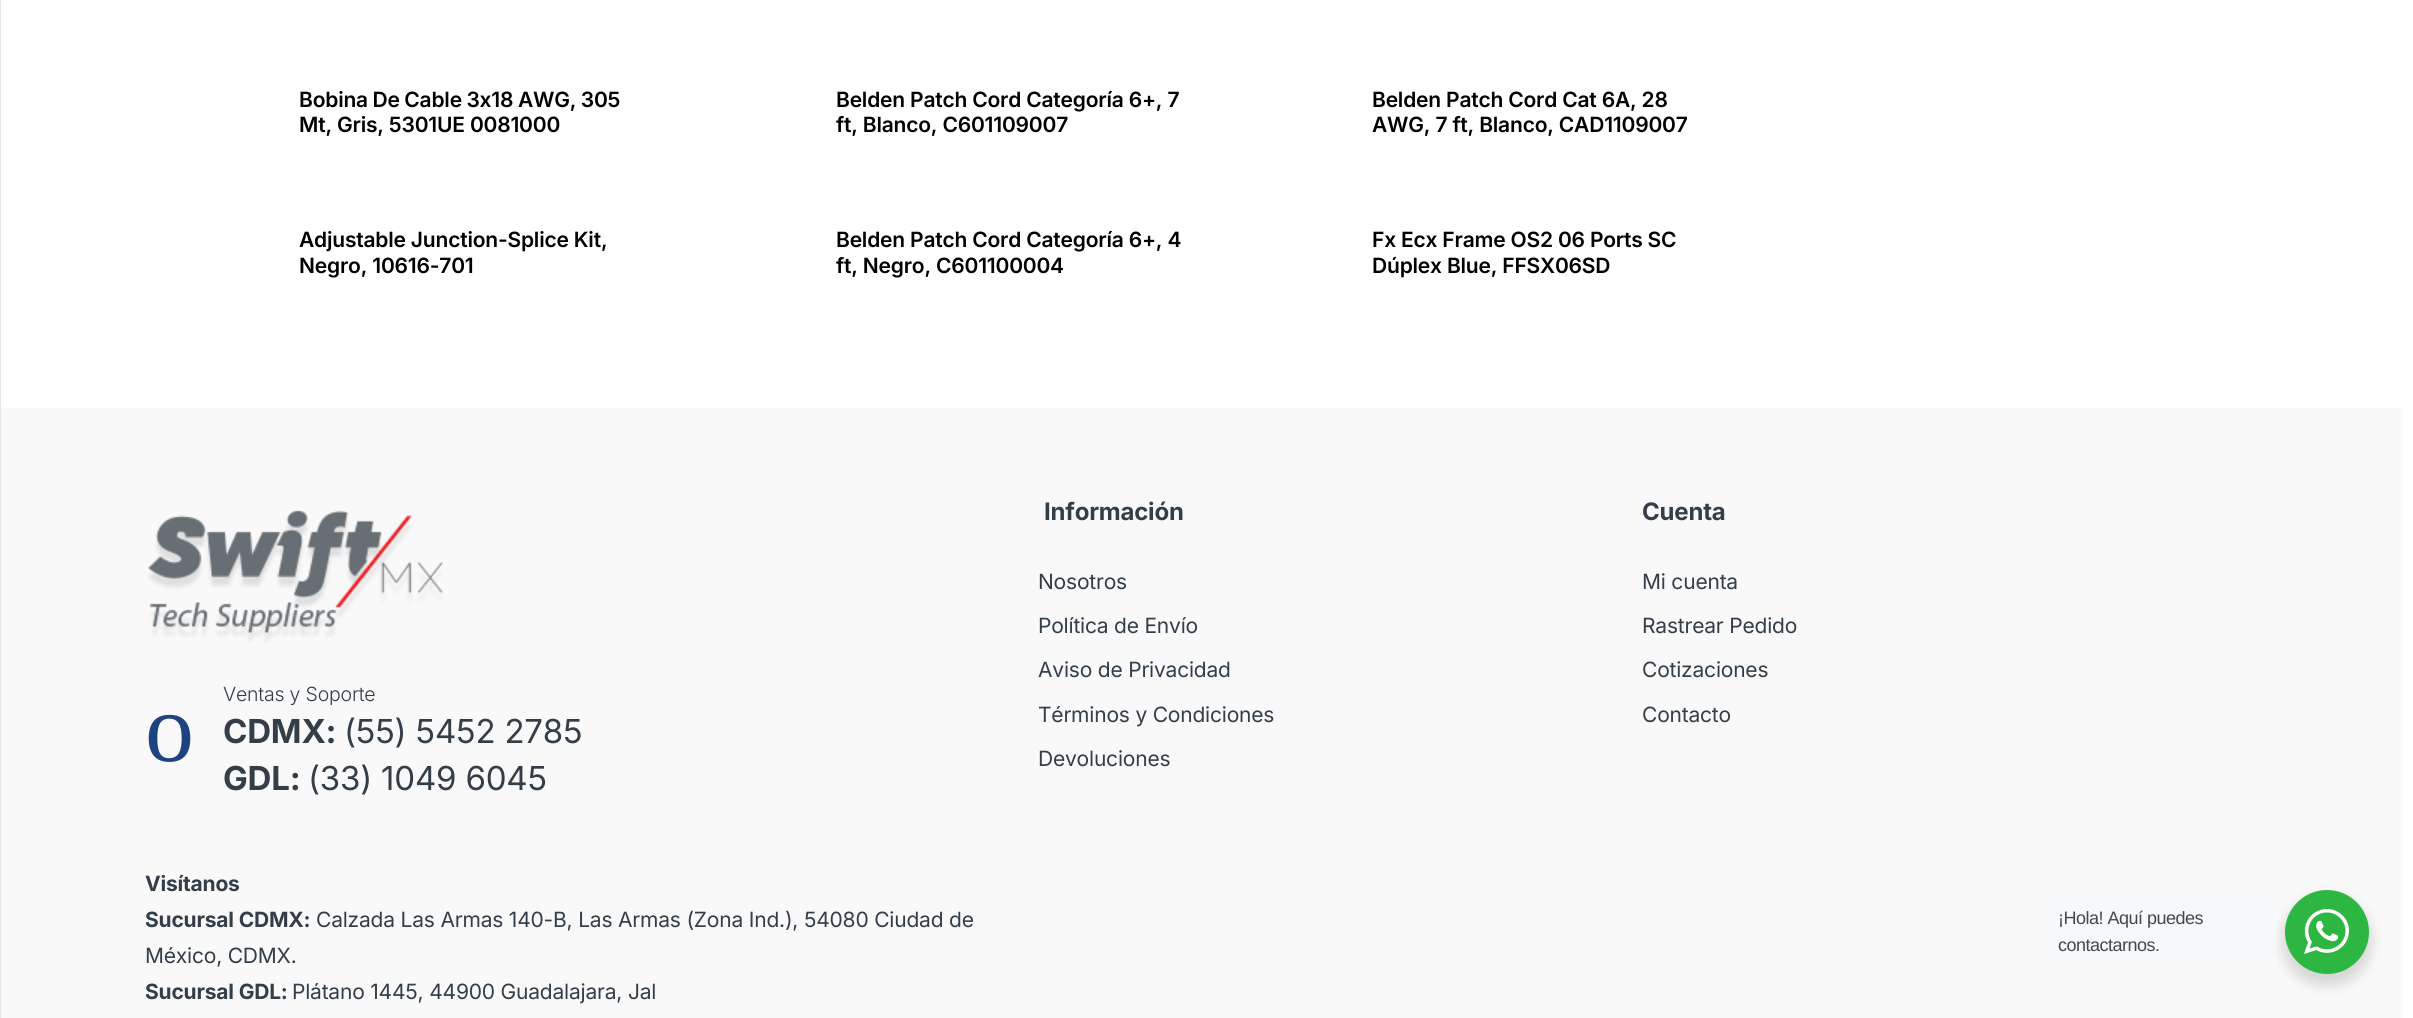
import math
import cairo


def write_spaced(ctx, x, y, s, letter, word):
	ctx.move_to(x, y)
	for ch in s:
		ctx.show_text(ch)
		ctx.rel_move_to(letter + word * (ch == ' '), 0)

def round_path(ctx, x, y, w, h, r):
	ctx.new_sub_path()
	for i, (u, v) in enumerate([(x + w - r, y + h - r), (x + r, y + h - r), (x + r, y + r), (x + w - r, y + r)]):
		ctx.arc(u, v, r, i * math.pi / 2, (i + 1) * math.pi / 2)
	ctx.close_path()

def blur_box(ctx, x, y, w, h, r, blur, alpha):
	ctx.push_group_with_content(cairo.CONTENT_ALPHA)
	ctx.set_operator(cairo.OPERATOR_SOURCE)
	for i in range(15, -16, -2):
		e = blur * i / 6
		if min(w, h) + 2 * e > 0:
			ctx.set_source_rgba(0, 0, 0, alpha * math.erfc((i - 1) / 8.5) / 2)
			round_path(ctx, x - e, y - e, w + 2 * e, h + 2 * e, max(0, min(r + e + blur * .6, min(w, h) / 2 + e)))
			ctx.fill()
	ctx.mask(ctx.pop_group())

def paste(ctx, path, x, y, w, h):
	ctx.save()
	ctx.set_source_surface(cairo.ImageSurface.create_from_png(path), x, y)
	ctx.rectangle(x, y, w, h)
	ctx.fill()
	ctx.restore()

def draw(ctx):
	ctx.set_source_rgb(1, 1, 1)
	ctx.paint()
	ctx.set_source_rgb(0.89, 0.914, 0.937)
	ctx.rectangle(0, 0, 1, 1018)
	ctx.fill()
	ctx.select_font_face('Inter SemiBold')
	ctx.set_font_size(21)
	ctx.set_source_rgb(0, 0, 0)
	write_spaced(ctx, 299, 107, 'Bobina De Cable 3x18 AWG, 305', -0.2, -0.5)
	for x, y, s in [
		(299, 132, 'Mt, Gris, 5301UE 0081000'),
		(299, 247, 'Adjustable Junction-Splice Kit,'),
		(299, 273, 'Negro, 10616-701'),
		(836, 107, 'Belden Patch Cord Categoría 6+, 7'),
		(836, 132, 'ft, Blanco, C601109007'),
		(836, 247, 'Belden Patch Cord Categoría 6+, 4'),
		(836, 273, 'ft, Negro, C601100004'),
		(1372, 107, 'Belden Patch Cord Cat 6A, 28'),
		(1372, 132, 'AWG, 7 ft, Blanco, CAD1109007'),
		(1372, 247, 'Fx Ecx Frame OS2 06 Ports SC'),
		(1372, 273, 'Dúplex Blue, FFSX06SD'),
	]:
		write_spaced(ctx, x, y, s, -0.2, 0)
	ctx.set_source_rgb(0.973, 0.973, 0.973)
	ctx.rectangle(1, 408, 2401, 610)
	ctx.fill()
	ctx.select_font_face('Inter', cairo.FONT_SLANT_NORMAL, cairo.FONT_WEIGHT_BOLD)
	ctx.set_font_size(24)
	ctx.set_source_rgb(0.2, 0.243, 0.282)
	write_spaced(ctx, 1044, 520, 'Información', -0.2, 0)
	ctx.select_font_face('Inter')
	ctx.set_font_size(21)
	for x, y, s in [
		(1038, 589, 'Nosotros'),
		(1038, 633, 'Política de Envío'),
		(1038, 677, 'Aviso de Privacidad'),
		(1038, 722, 'Términos y Condiciones'),
		(1038, 766, 'Devoluciones'),
	]:
		write_spaced(ctx, x, y, s, -0.2, 0)
	ctx.select_font_face('Inter', cairo.FONT_SLANT_NORMAL, cairo.FONT_WEIGHT_BOLD)
	ctx.set_font_size(24)
	write_spaced(ctx, 1642, 520, 'Cuenta', -0.2, 0)
	ctx.select_font_face('Inter')
	ctx.set_font_size(21)
	for x, y, s in [
		(1642, 589, 'Mi cuenta'),
		(1642, 633, 'Rastrear Pedido'),
		(1642, 677, 'Cotizaciones'),
		(1642, 722, 'Contacto'),
	]:
		write_spaced(ctx, x, y, s, -0.2, 0)
	paste(ctx, 'media/1.png', 148, 510, 295, 133)
	ctx.select_font_face('Liberation Serif')
	ctx.set_font_size(98)
	ctx.set_source_rgb(0.118, 0.263, 0.506)
	write_spaced(ctx, 145, 761, 'o', -0.2, 0)
	ctx.select_font_face('Inter Light')
	ctx.set_font_size(19.5)
	ctx.set_source_rgb(0.2, 0.243, 0.282)
	write_spaced(ctx, 223, 701, 'Ventas y Soporte', -0.2, 0)
	ctx.select_font_face('Inter', cairo.FONT_SLANT_NORMAL, cairo.FONT_WEIGHT_BOLD)
	ctx.set_font_size(33)
	write_spaced(ctx, 223, 743, 'CDMX:', -0.2, 0)
	ctx.select_font_face('Inter')
	write_spaced(ctx, 344, 743, '(55) 5452 2785', -0.2, 0)
	ctx.select_font_face('Inter', cairo.FONT_SLANT_NORMAL, cairo.FONT_WEIGHT_BOLD)
	write_spaced(ctx, 223, 790, 'GDL:', -0.2, 0)
	ctx.select_font_face('Inter')
	write_spaced(ctx, 308, 790, '(33) 1049 6045', -0.2, 0)
	ctx.select_font_face('Inter', cairo.FONT_SLANT_NORMAL, cairo.FONT_WEIGHT_BOLD)
	ctx.set_font_size(21)
	write_spaced(ctx, 145, 891, 'Visítanos', -0.2, 0)
	write_spaced(ctx, 145, 927, 'Sucursal CDMX:', -0.2, 0)
	ctx.select_font_face('Inter')
	write_spaced(ctx, 316, 927, 'Calzada Las Armas 140-B, Las Armas (Zona Ind.), 54080 Ciudad de', -0.2, 0)
	write_spaced(ctx, 145, 963, 'México, CDMX.', -0.2, 0)
	ctx.select_font_face('Inter', cairo.FONT_SLANT_NORMAL, cairo.FONT_WEIGHT_BOLD)
	write_spaced(ctx, 145, 999, 'Sucursal GDL:', -0.2, 0)
	ctx.select_font_face('Inter')
	write_spaced(ctx, 292, 999, 'Plátano 1445, 44900 Guadalajara, Jal', -0.2, 0)
	ctx.set_source_rgb(0, 0, 0)
	blur_box(ctx, 2282, 896, 90, 90, 45, 6, 0.14)
	ctx.set_source_rgb(0.961, 0.969, 0.976)
	round_path(ctx, 2040, 893, 234, 78, 6)
	ctx.fill()
	ctx.select_font_face('Liberation Sans')
	ctx.set_font_size(18)
	ctx.set_source_rgb(0.263, 0.278, 0.306)
	write_spaced(ctx, 2058, 924, '¡Hola! Aquí puedes', -0.5, 0)
	write_spaced(ctx, 2058, 951, 'contactarnos.', -0.5, 0)
	ctx.set_source_rgb(0.176, 0.718, 0.259)
	ctx.new_path()
	ctx.arc(2327, 932, 42, 0, 2 * math.pi)
	ctx.fill()
	paste(ctx, 'media/2.png', 2304, 909, 45, 45)


surface = cairo.ImageSurface(cairo.FORMAT_RGB24, 2413, 1018)
ctx = cairo.Context(surface)
options = cairo.FontOptions()
options.set_hint_metrics(cairo.HINT_METRICS_OFF)
options.set_hint_style(cairo.HINT_STYLE_NONE)
ctx.set_font_options(options)
ctx.set_miter_limit(4)
draw(ctx)
surface.write_to_png('image.png')
